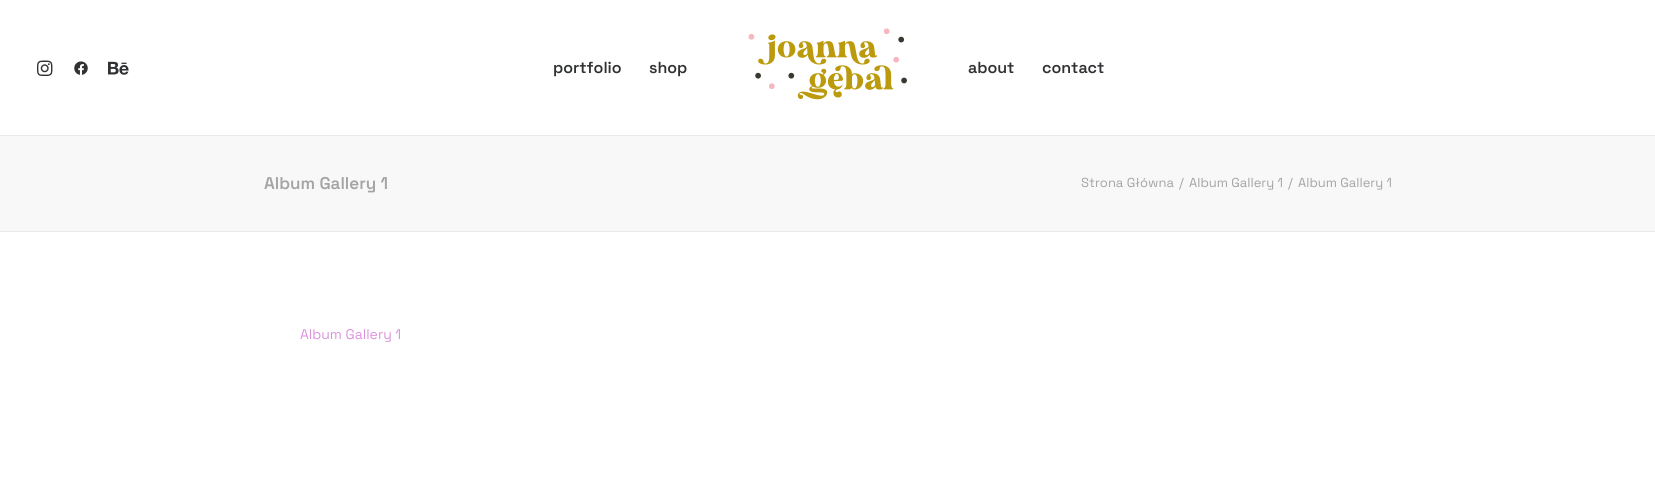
import math
import cairo


def paste(ctx, path, x, y, w, h):
	ctx.save()
	ctx.set_source_surface(cairo.ImageSurface.create_from_png(path), x, y)
	ctx.rectangle(x, y, w, h)
	ctx.fill()
	ctx.restore()

def draw(ctx):
	ctx.set_source_rgb(0.969, 0.969, 0.969)
	ctx.paint()
	ctx.set_source_rgb(1, 1, 1)
	ctx.rectangle(0, 0, 1655, 135)
	ctx.fill()
	paste(ctx, 'media/1.png', 37, 60, 16, 16)
	paste(ctx, 'media/2.png', 74, 61, 14, 14)
	paste(ctx, 'media/3.png', 108, 61, 21, 14)
	ctx.select_font_face('Space Grotesk SemiBold')
	ctx.set_font_size(16)
	ctx.set_source_rgb(0.188, 0.192, 0.2)
	ctx.move_to(553, 73)
	ctx.show_text('portfolio')
	ctx.move_to(649, 73)
	ctx.show_text('shop')
	paste(ctx, 'media/4.png', 748, 28, 159, 72)
	ctx.move_to(968, 73)
	ctx.show_text('about')
	ctx.move_to(1042, 73)
	ctx.show_text('contact')
	ctx.set_source_rgb(0.918, 0.918, 0.918)
	ctx.rectangle(0, 135, 1655, 1)
	ctx.fill()
	ctx.rectangle(0, 231, 1655, 1)
	ctx.fill()
	ctx.set_font_size(17)
	ctx.set_source_rgb(0.643, 0.643, 0.643)
	ctx.move_to(264, 189)
	ctx.show_text('Album Gallery 1')
	ctx.select_font_face('Space Grotesk')
	ctx.set_font_size(13)
	for x, y, s in [
		(1081, 187, 'Strona Główna'),
		(1179, 187, '/'),
		(1189, 187, 'Album Gallery 1'),
		(1288, 187, '/'),
		(1298, 187, 'Album Gallery 1'),
	]:
		ctx.move_to(x, y)
		ctx.show_text(s)
	ctx.set_source_rgb(1, 1, 1)
	ctx.rectangle(0, 232, 1655, 259)
	ctx.fill()
	ctx.set_font_size(14)
	ctx.set_source_rgb(0.863, 0.573, 0.867)
	ctx.move_to(300, 339)
	ctx.show_text('Album Gallery 1')


surface = cairo.ImageSurface(cairo.FORMAT_RGB24, 1655, 491)
ctx = cairo.Context(surface)
options = cairo.FontOptions()
options.set_hint_metrics(cairo.HINT_METRICS_OFF)
options.set_hint_style(cairo.HINT_STYLE_NONE)
ctx.set_font_options(options)
ctx.set_miter_limit(4)
draw(ctx)
surface.write_to_png('image.png')
